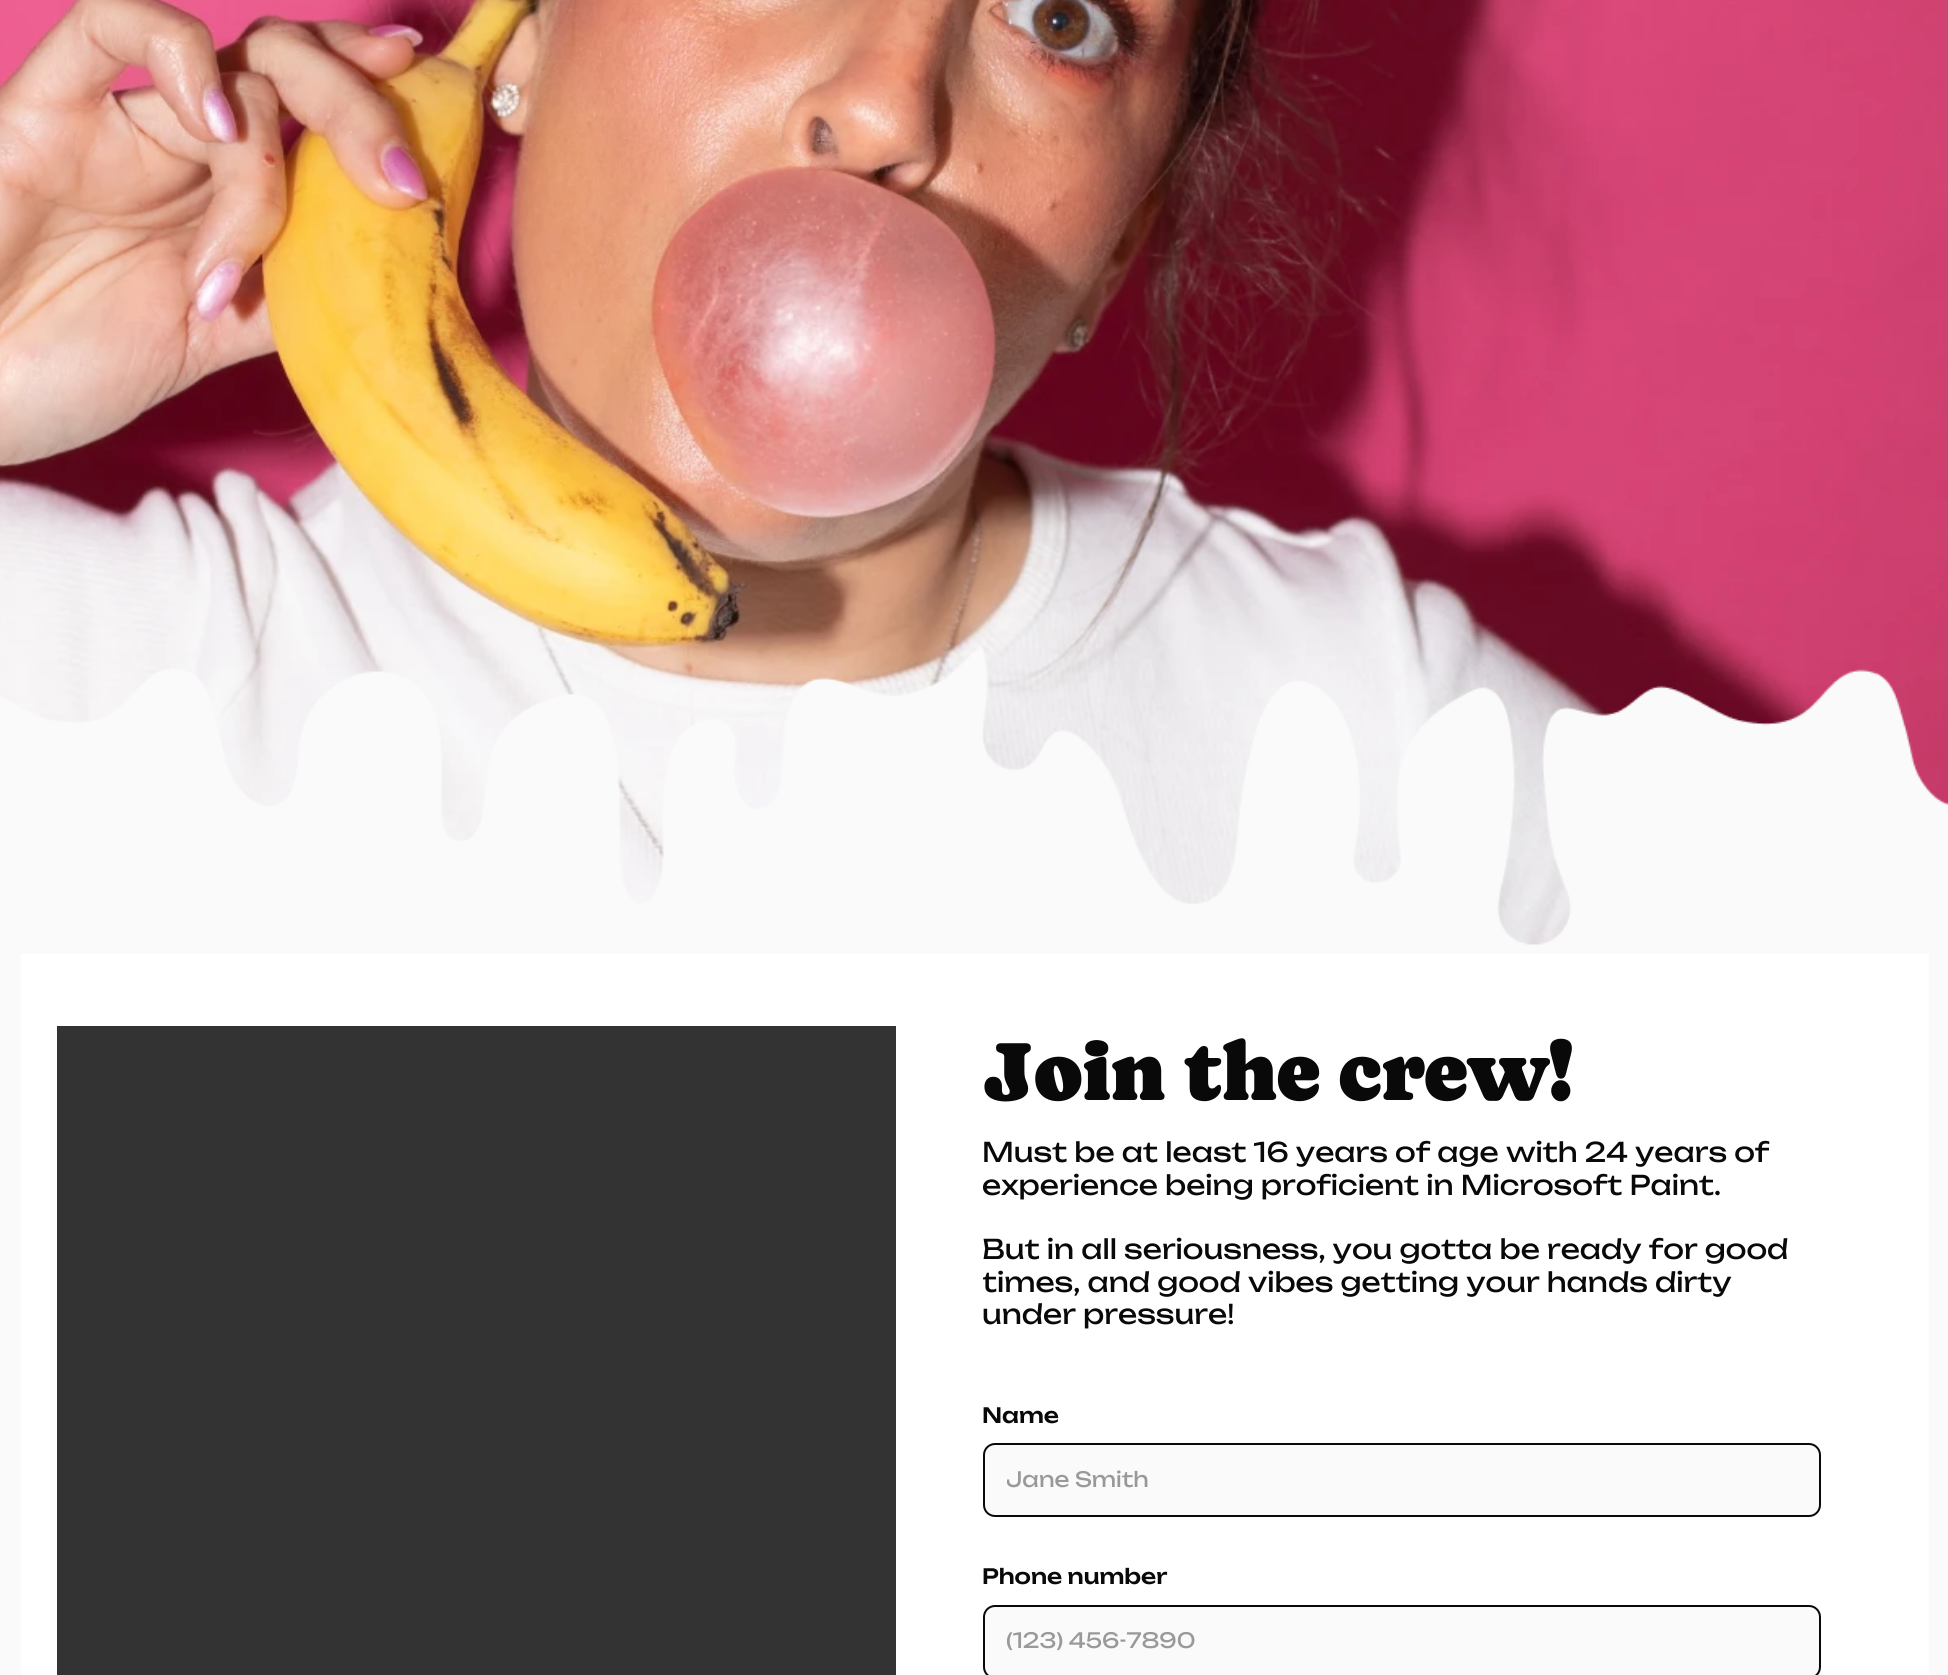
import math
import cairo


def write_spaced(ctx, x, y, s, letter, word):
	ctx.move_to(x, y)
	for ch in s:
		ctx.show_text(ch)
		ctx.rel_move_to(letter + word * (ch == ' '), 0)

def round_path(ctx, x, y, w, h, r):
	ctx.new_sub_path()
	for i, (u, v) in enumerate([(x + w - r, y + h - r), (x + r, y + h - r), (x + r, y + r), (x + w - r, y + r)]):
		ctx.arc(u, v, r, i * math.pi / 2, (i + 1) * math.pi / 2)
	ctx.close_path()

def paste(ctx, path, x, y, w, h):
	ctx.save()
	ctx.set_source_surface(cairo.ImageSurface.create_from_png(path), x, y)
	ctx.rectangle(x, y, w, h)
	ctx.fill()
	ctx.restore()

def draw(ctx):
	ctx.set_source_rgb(0.98, 0.98, 0.98)
	ctx.paint()
	paste(ctx, 'media/1.png', 0, 0, 1948, 945)
	ctx.set_source_rgb(1, 1, 1)
	ctx.rectangle(21, 954, 1908, 721)
	ctx.fill()
	ctx.set_source_rgb(0.2, 0.2, 0.2)
	ctx.rectangle(57, 1026, 839, 649)
	ctx.fill()
	ctx.select_font_face('Caprasimo')
	ctx.set_font_size(84)
	ctx.set_source_rgb(0.039, 0.039, 0.039)
	write_spaced(ctx, 982, 1100, 'Join the crew!', -1.75, 0)
	ctx.select_font_face('Unbounded')
	ctx.set_font_size(27)
	ctx.move_to(982, 1162)
	ctx.show_text('Must be at least 16 years of age with 24 years of')
	ctx.save()
	ctx.rectangle(983, 1026, 838, 305)
	ctx.clip()
	ctx.move_to(982, 1195)
	ctx.show_text('experience being proficient in Microsoft Paint.')
	ctx.restore()
	ctx.move_to(982, 1259)
	ctx.show_text('But in all seriousness, you gotta be ready for good')
	ctx.save()
	ctx.rectangle(983, 1026, 838, 305)
	ctx.clip()
	ctx.move_to(982, 1292)
	ctx.show_text('times, and good vibes getting your hands dirty')
	ctx.restore()
	ctx.move_to(982, 1324)
	ctx.show_text('under pressure!')
	ctx.select_font_face('Unbounded Medium')
	ctx.set_font_size(21)
	ctx.move_to(982, 1423)
	ctx.show_text('Name')
	ctx.set_source_rgb(0.98, 0.98, 0.98)
	round_path(ctx, 983, 1443, 838, 74, 12)
	ctx.fill()
	round_path(ctx, 984, 1444, 836, 72, 11)
	ctx.set_source_rgb(0.039, 0.039, 0.039)
	ctx.stroke()
	ctx.save()
	ctx.rectangle(1007, 1466, 790, 25)
	ctx.clip()
	ctx.select_font_face('Unbounded')
	ctx.set_source_rgb(0.6, 0.6, 0.6)
	ctx.move_to(1006, 1487)
	ctx.show_text('Jane Smith')
	ctx.restore()
	ctx.move_to(982, 1584)
	ctx.show_text('Phone number')
	ctx.set_source_rgb(0.98, 0.98, 0.98)
	round_path(ctx, 983, 1605, 838, 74, 12)
	ctx.fill()
	round_path(ctx, 984, 1606, 836, 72, 11)
	ctx.set_source_rgb(0.039, 0.039, 0.039)
	ctx.stroke()
	ctx.save()
	ctx.rectangle(1007, 1628, 790, 25)
	ctx.clip()
	ctx.select_font_face('Unbounded')
	ctx.set_source_rgb(0.6, 0.6, 0.6)
	ctx.move_to(1006, 1648)
	ctx.show_text('(123) 456-7890')
	ctx.restore()


surface = cairo.ImageSurface(cairo.FORMAT_RGB24, 1948, 1675)
ctx = cairo.Context(surface)
options = cairo.FontOptions()
options.set_hint_metrics(cairo.HINT_METRICS_OFF)
options.set_hint_style(cairo.HINT_STYLE_NONE)
ctx.set_font_options(options)
ctx.set_miter_limit(4)
draw(ctx)
surface.write_to_png('image.png')
